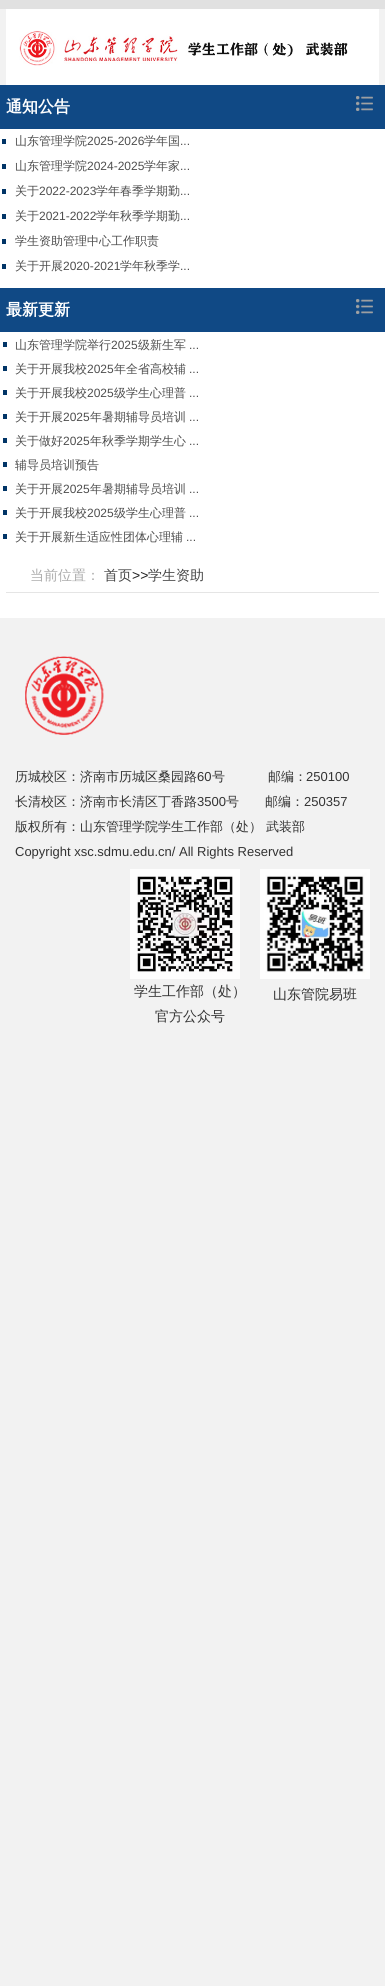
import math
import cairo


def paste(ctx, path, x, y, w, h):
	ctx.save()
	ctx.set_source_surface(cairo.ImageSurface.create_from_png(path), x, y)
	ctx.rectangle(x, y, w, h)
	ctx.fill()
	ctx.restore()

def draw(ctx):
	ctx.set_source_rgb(0.949, 0.949, 0.949)
	ctx.paint()
	ctx.set_source_rgb(0.882, 0.882, 0.882)
	ctx.rectangle(0, 0, 385, 9)
	ctx.fill()
	ctx.set_source_rgb(1, 1, 1)
	ctx.rectangle(6, 9, 373, 76)
	ctx.fill()
	paste(ctx, 'media/1.png', 19, 31, 329, 35)
	ctx.rectangle(0, 129, 385, 489)
	ctx.fill()
	ctx.set_source_rgb(0.063, 0.286, 0.522)
	ctx.rectangle(0, 85, 385, 44)
	ctx.fill()
	ctx.select_font_face('WenQuanYi Zen Hei', cairo.FONT_SLANT_NORMAL, cairo.FONT_WEIGHT_BOLD)
	ctx.set_font_size(16)
	ctx.set_source_rgb(1, 1, 1)
	ctx.move_to(6, 112)
	ctx.show_text('通知公告')
	paste(ctx, 'media/2.png', 356, 96, 17, 15)
	ctx.set_source_rgb(0.004, 0.208, 0.404)
	ctx.rectangle(2, 139, 4, 5)
	ctx.fill()
	ctx.select_font_face('WenQuanYi Zen Hei Medium')
	ctx.set_font_size(12)
	ctx.set_source_rgb(0.306, 0.306, 0.306)
	ctx.move_to(15, 145)
	ctx.show_text('山东管理学院')
	ctx.select_font_face('Liberation Sans')
	ctx.move_to(87, 145)
	ctx.show_text('2025-2026')
	ctx.select_font_face('WenQuanYi Zen Hei Medium')
	ctx.move_to(144, 145)
	ctx.show_text('学年国')
	ctx.select_font_face('Liberation Sans')
	ctx.move_to(180, 145)
	ctx.show_text('...')
	ctx.set_source_rgb(0.004, 0.208, 0.404)
	ctx.rectangle(2, 164, 4, 5)
	ctx.fill()
	ctx.select_font_face('WenQuanYi Zen Hei Medium')
	ctx.set_source_rgb(0.306, 0.306, 0.306)
	ctx.move_to(15, 170)
	ctx.show_text('山东管理学院')
	ctx.select_font_face('Liberation Sans')
	ctx.move_to(87, 170)
	ctx.show_text('2024-2025')
	ctx.select_font_face('WenQuanYi Zen Hei Medium')
	ctx.move_to(144, 170)
	ctx.show_text('学年家')
	ctx.select_font_face('Liberation Sans')
	ctx.move_to(180, 170)
	ctx.show_text('...')
	ctx.set_source_rgb(0.004, 0.208, 0.404)
	ctx.rectangle(2, 189, 4, 5)
	ctx.fill()
	ctx.select_font_face('WenQuanYi Zen Hei Medium')
	ctx.set_source_rgb(0.306, 0.306, 0.306)
	ctx.move_to(15, 195)
	ctx.show_text('关于')
	ctx.select_font_face('Liberation Sans')
	ctx.move_to(39, 195)
	ctx.show_text('2022-2023')
	ctx.select_font_face('WenQuanYi Zen Hei Medium')
	ctx.move_to(96, 195)
	ctx.show_text('学年春季学期勤')
	ctx.select_font_face('Liberation Sans')
	ctx.move_to(180, 195)
	ctx.show_text('...')
	ctx.set_source_rgb(0.004, 0.208, 0.404)
	ctx.rectangle(2, 214, 4, 5)
	ctx.fill()
	ctx.select_font_face('WenQuanYi Zen Hei Medium')
	ctx.set_source_rgb(0.306, 0.306, 0.306)
	ctx.move_to(15, 220)
	ctx.show_text('关于')
	ctx.select_font_face('Liberation Sans')
	ctx.move_to(39, 220)
	ctx.show_text('2021-2022')
	ctx.select_font_face('WenQuanYi Zen Hei Medium')
	ctx.move_to(96, 220)
	ctx.show_text('学年秋季学期勤')
	ctx.select_font_face('Liberation Sans')
	ctx.move_to(180, 220)
	ctx.show_text('...')
	ctx.set_source_rgb(0.004, 0.208, 0.404)
	ctx.rectangle(2, 239, 4, 5)
	ctx.fill()
	ctx.select_font_face('WenQuanYi Zen Hei Medium')
	ctx.set_source_rgb(0.306, 0.306, 0.306)
	ctx.move_to(15, 245)
	ctx.show_text('学生资助管理中心工作职责')
	ctx.set_source_rgb(0.004, 0.208, 0.404)
	ctx.rectangle(2, 264, 4, 5)
	ctx.fill()
	ctx.set_source_rgb(0.306, 0.306, 0.306)
	ctx.move_to(15, 270)
	ctx.show_text('关于开展')
	ctx.select_font_face('Liberation Sans')
	ctx.move_to(63, 270)
	ctx.show_text('2020-2021')
	ctx.select_font_face('WenQuanYi Zen Hei Medium')
	ctx.move_to(120, 270)
	ctx.show_text('学年秋季学')
	ctx.select_font_face('Liberation Sans')
	ctx.move_to(180, 270)
	ctx.show_text('...')
	ctx.set_source_rgb(0.063, 0.286, 0.522)
	ctx.rectangle(0, 288, 385, 44)
	ctx.fill()
	ctx.select_font_face('WenQuanYi Zen Hei', cairo.FONT_SLANT_NORMAL, cairo.FONT_WEIGHT_BOLD)
	ctx.set_font_size(16)
	ctx.set_source_rgb(1, 1, 1)
	ctx.move_to(6, 315)
	ctx.show_text('最新更新')
	paste(ctx, 'media/2.png', 356, 299, 17, 15)
	ctx.set_source_rgb(0.004, 0.208, 0.404)
	ctx.rectangle(3, 342, 4, 5)
	ctx.fill()
	ctx.select_font_face('WenQuanYi Zen Hei Medium')
	ctx.set_font_size(12)
	ctx.set_source_rgb(0.306, 0.306, 0.306)
	ctx.move_to(15, 349)
	ctx.show_text('山东管理学院举行')
	ctx.select_font_face('Liberation Sans')
	ctx.move_to(111, 349)
	ctx.show_text('2025')
	ctx.select_font_face('WenQuanYi Zen Hei Medium')
	ctx.move_to(138, 349)
	ctx.show_text('级新生军')
	ctx.select_font_face('Liberation Sans')
	ctx.move_to(189, 349)
	ctx.show_text('...')
	ctx.set_source_rgb(0.004, 0.208, 0.404)
	ctx.rectangle(3, 366, 4, 5)
	ctx.fill()
	ctx.select_font_face('WenQuanYi Zen Hei Medium')
	ctx.set_source_rgb(0.306, 0.306, 0.306)
	ctx.move_to(15, 373)
	ctx.show_text('关于开展我校')
	ctx.select_font_face('Liberation Sans')
	ctx.move_to(87, 373)
	ctx.show_text('2025')
	ctx.select_font_face('WenQuanYi Zen Hei Medium')
	ctx.move_to(114, 373)
	ctx.show_text('年全省高校辅')
	ctx.select_font_face('Liberation Sans')
	ctx.move_to(189, 373)
	ctx.show_text('...')
	ctx.set_source_rgb(0.004, 0.208, 0.404)
	ctx.rectangle(3, 390, 4, 5)
	ctx.fill()
	ctx.select_font_face('WenQuanYi Zen Hei Medium')
	ctx.set_source_rgb(0.306, 0.306, 0.306)
	ctx.move_to(15, 397)
	ctx.show_text('关于开展我校')
	ctx.select_font_face('Liberation Sans')
	ctx.move_to(87, 397)
	ctx.show_text('2025')
	ctx.select_font_face('WenQuanYi Zen Hei Medium')
	ctx.move_to(114, 397)
	ctx.show_text('级学生心理普')
	ctx.select_font_face('Liberation Sans')
	ctx.move_to(189, 397)
	ctx.show_text('...')
	ctx.set_source_rgb(0.004, 0.208, 0.404)
	ctx.rectangle(3, 414, 4, 5)
	ctx.fill()
	ctx.select_font_face('WenQuanYi Zen Hei Medium')
	ctx.set_source_rgb(0.306, 0.306, 0.306)
	ctx.move_to(15, 421)
	ctx.show_text('关于开展')
	ctx.select_font_face('Liberation Sans')
	ctx.move_to(63, 421)
	ctx.show_text('2025')
	ctx.select_font_face('WenQuanYi Zen Hei Medium')
	ctx.move_to(90, 421)
	ctx.show_text('年暑期辅导员培训')
	ctx.select_font_face('Liberation Sans')
	ctx.move_to(189, 421)
	ctx.show_text('...')
	ctx.set_source_rgb(0.004, 0.208, 0.404)
	ctx.rectangle(3, 438, 4, 5)
	ctx.fill()
	ctx.select_font_face('WenQuanYi Zen Hei Medium')
	ctx.set_source_rgb(0.306, 0.306, 0.306)
	ctx.move_to(15, 445)
	ctx.show_text('关于做好')
	ctx.select_font_face('Liberation Sans')
	ctx.move_to(63, 445)
	ctx.show_text('2025')
	ctx.select_font_face('WenQuanYi Zen Hei Medium')
	ctx.move_to(90, 445)
	ctx.show_text('年秋季学期学生心')
	ctx.select_font_face('Liberation Sans')
	ctx.move_to(189, 445)
	ctx.show_text('...')
	ctx.set_source_rgb(0.004, 0.208, 0.404)
	ctx.rectangle(3, 462, 4, 5)
	ctx.fill()
	ctx.select_font_face('WenQuanYi Zen Hei Medium')
	ctx.set_source_rgb(0.306, 0.306, 0.306)
	ctx.move_to(15, 469)
	ctx.show_text('辅导员培训预告')
	ctx.set_source_rgb(0.004, 0.208, 0.404)
	ctx.rectangle(3, 486, 4, 5)
	ctx.fill()
	ctx.set_source_rgb(0.306, 0.306, 0.306)
	ctx.move_to(15, 493)
	ctx.show_text('关于开展')
	ctx.select_font_face('Liberation Sans')
	ctx.move_to(63, 493)
	ctx.show_text('2025')
	ctx.select_font_face('WenQuanYi Zen Hei Medium')
	ctx.move_to(90, 493)
	ctx.show_text('年暑期辅导员培训')
	ctx.select_font_face('Liberation Sans')
	ctx.move_to(189, 493)
	ctx.show_text('...')
	ctx.set_source_rgb(0.004, 0.208, 0.404)
	ctx.rectangle(3, 510, 4, 5)
	ctx.fill()
	ctx.select_font_face('WenQuanYi Zen Hei Medium')
	ctx.set_source_rgb(0.306, 0.306, 0.306)
	ctx.move_to(15, 517)
	ctx.show_text('关于开展我校')
	ctx.select_font_face('Liberation Sans')
	ctx.move_to(87, 517)
	ctx.show_text('2025')
	ctx.select_font_face('WenQuanYi Zen Hei Medium')
	ctx.move_to(114, 517)
	ctx.show_text('级学生心理普')
	ctx.select_font_face('Liberation Sans')
	ctx.move_to(189, 517)
	ctx.show_text('...')
	ctx.set_source_rgb(0.004, 0.208, 0.404)
	ctx.rectangle(3, 534, 4, 5)
	ctx.fill()
	ctx.select_font_face('WenQuanYi Zen Hei Medium')
	ctx.set_source_rgb(0.306, 0.306, 0.306)
	ctx.move_to(15, 541)
	ctx.show_text('关于开展新生适应性团体心理辅')
	ctx.select_font_face('Liberation Sans')
	ctx.move_to(186, 541)
	ctx.show_text('...')
	ctx.set_source_rgb(0.898, 0.898, 0.898)
	ctx.rectangle(6, 592, 373, 1)
	ctx.fill()
	ctx.select_font_face('WenQuanYi Zen Hei Medium')
	ctx.set_font_size(14)
	ctx.set_source_rgb(0.675, 0.675, 0.675)
	ctx.move_to(30, 580)
	ctx.show_text('当前位置：')
	ctx.set_source_rgb(0.271, 0.271, 0.271)
	ctx.move_to(104, 580)
	ctx.show_text('首页')
	ctx.select_font_face('Liberation Sans')
	ctx.set_source_rgb(0.133, 0.133, 0.133)
	ctx.move_to(132, 580)
	ctx.show_text('>>')
	ctx.select_font_face('WenQuanYi Zen Hei Medium')
	ctx.set_source_rgb(0.271, 0.271, 0.271)
	ctx.move_to(148, 580)
	ctx.show_text('学生资助')
	paste(ctx, 'media/3.png', 25, 656, 79, 79)
	ctx.set_font_size(13)
	ctx.set_source_rgb(0.2, 0.2, 0.2)
	ctx.move_to(15, 781)
	ctx.show_text('历城校区：济南市历城区桑园路')
	ctx.select_font_face('Liberation Sans')
	ctx.move_to(197, 781)
	ctx.show_text('60')
	ctx.select_font_face('WenQuanYi Zen Hei Medium')
	ctx.move_to(212, 781)
	ctx.show_text('号　　　 邮编：')
	ctx.select_font_face('Liberation Sans')
	ctx.move_to(306, 781)
	ctx.show_text('250100')
	ctx.select_font_face('WenQuanYi Zen Hei Medium')
	ctx.move_to(15, 806)
	ctx.show_text('长清校区：济南市长清区丁香路')
	ctx.select_font_face('Liberation Sans')
	ctx.move_to(197, 806)
	ctx.show_text('3500')
	ctx.select_font_face('WenQuanYi Zen Hei Medium')
	ctx.move_to(226, 806)
	ctx.show_text('号　　邮编：')
	ctx.select_font_face('Liberation Sans')
	ctx.move_to(304, 806)
	ctx.show_text('250357')
	ctx.select_font_face('WenQuanYi Zen Hei Medium')
	ctx.move_to(15, 831)
	ctx.show_text('版权所有：山东管理学院学生工作部（处） 武装部')
	ctx.select_font_face('Liberation Sans')
	ctx.move_to(15, 856)
	ctx.show_text('Copyright xsc.sdmu.edu.cn/ All Rights Reserved')
	paste(ctx, 'media/4.png', 130, 869, 110, 110)
	paste(ctx, 'media/5.png', 260, 869, 110, 110)
	ctx.select_font_face('WenQuanYi Zen Hei Medium')
	ctx.set_font_size(14)
	for x, y, s in [
		(134, 996, '学生工作部（处）'),
		(155, 1021, '官方公众号'),
		(273, 999, '山东管院易班'),
	]:
		ctx.move_to(x, y)
		ctx.show_text(s)


surface = cairo.ImageSurface(cairo.FORMAT_RGB24, 385, 1986)
ctx = cairo.Context(surface)
options = cairo.FontOptions()
options.set_hint_metrics(cairo.HINT_METRICS_OFF)
options.set_hint_style(cairo.HINT_STYLE_NONE)
ctx.set_font_options(options)
ctx.set_miter_limit(4)
draw(ctx)
surface.write_to_png('image.png')
